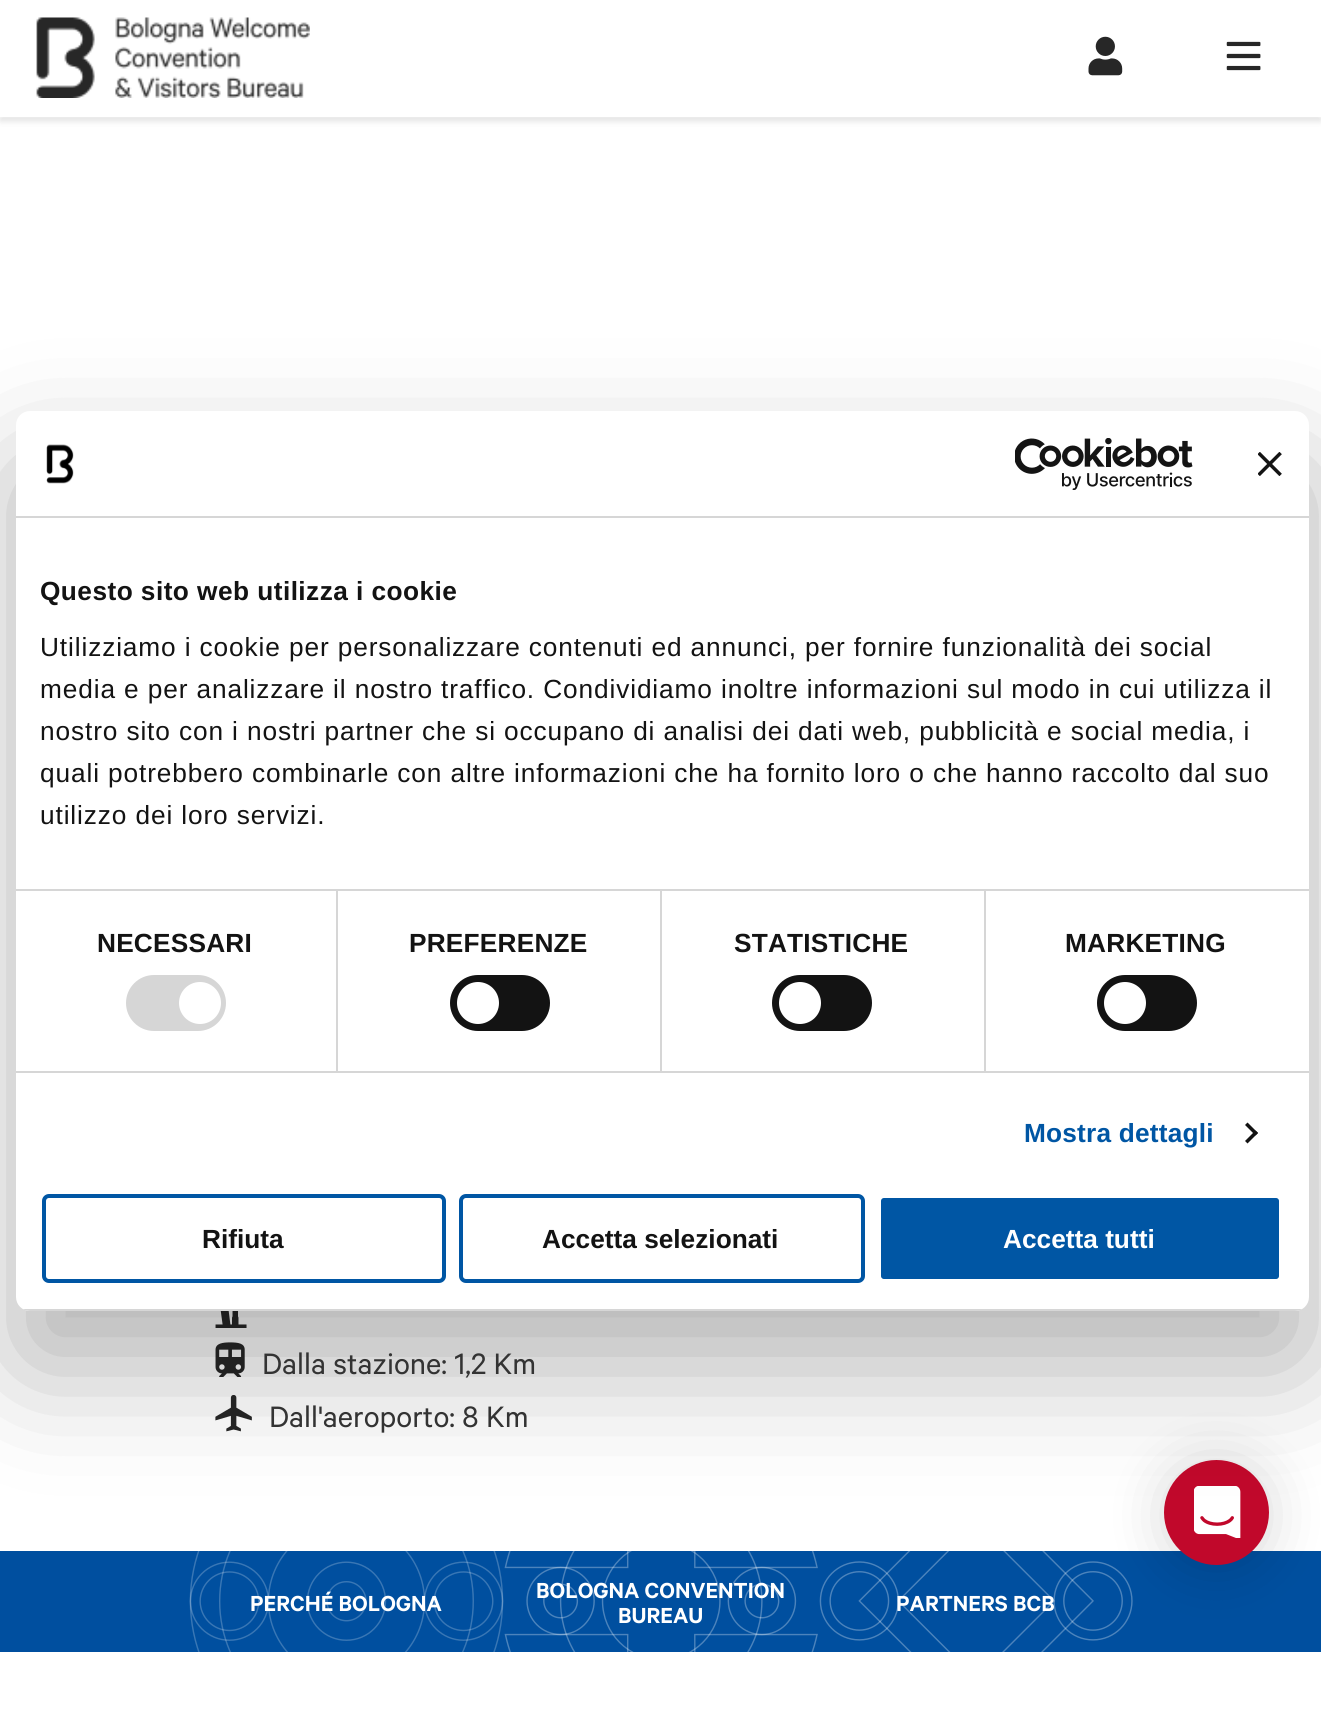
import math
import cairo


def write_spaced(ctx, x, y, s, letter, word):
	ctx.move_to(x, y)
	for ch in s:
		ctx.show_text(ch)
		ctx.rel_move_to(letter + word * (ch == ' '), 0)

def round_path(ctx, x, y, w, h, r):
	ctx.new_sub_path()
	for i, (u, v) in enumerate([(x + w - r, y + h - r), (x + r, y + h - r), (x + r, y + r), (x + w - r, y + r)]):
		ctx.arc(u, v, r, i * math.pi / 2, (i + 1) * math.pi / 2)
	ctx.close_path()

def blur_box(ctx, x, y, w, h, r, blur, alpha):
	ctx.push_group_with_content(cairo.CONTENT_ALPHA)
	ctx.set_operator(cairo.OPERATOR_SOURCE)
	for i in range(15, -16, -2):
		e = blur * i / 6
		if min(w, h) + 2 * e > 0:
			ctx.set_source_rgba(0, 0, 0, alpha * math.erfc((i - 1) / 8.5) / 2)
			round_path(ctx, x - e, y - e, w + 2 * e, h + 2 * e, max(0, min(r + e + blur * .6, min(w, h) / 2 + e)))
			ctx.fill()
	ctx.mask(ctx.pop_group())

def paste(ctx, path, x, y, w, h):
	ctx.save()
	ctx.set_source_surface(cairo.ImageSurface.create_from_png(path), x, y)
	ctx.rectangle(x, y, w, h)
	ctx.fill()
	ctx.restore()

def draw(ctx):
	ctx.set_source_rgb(1, 1, 1)
	ctx.paint()
	paste(ctx, 'media/7.png', 215, 1311, 32, 17)
	paste(ctx, 'media/8.png', 215, 1342, 30, 35)
	paste(ctx, 'media/9.png', 215, 1395, 37, 37)
	ctx.set_source_rgb(0, 0.31, 0.624)
	ctx.rectangle(0, 1551, 1321, 101)
	ctx.fill()
	paste(ctx, 'media/13.png', 819, 1551, 314, 101)
	ctx.set_source_rgb(0, 0, 0)
	blur_box(ctx, 1164, 1463, 105, 105, 52.5, 28, 0.15)
	ctx.set_source_rgb(0.757, 0.035, 0.169)
	ctx.arc(1216.5, 1512.5, 52.5, 0, 2 * math.pi)
	ctx.fill()
	paste(ctx, 'media/10.png', 1194, 1486, 47, 52)
	ctx.set_source_rgb(0, 0, 0)
	blur_box(ctx, 16, 467, 1293, 900, 14, 59.5, 0.3)
	ctx.set_source_rgb(1, 1, 1)
	round_path(ctx, 16, 411, 1293, 900, 14)
	ctx.fill()
	ctx.set_source_rgb(0.839, 0.839, 0.839)
	ctx.rectangle(16, 516, 1293, 2)
	ctx.fill()
	paste(ctx, 'media/1.png', 46, 444, 28, 40)
	paste(ctx, 'media/2.png', 1015, 438, 178, 52)
	paste(ctx, 'media/3.png', 1258, 452, 24, 24)
	ctx.rectangle(16, 889, 1293, 2)
	ctx.fill()
	ctx.select_font_face('Liberation Sans', cairo.FONT_SLANT_NORMAL, cairo.FONT_WEIGHT_BOLD)
	ctx.set_font_size(26.25)
	ctx.set_source_rgb(0.078, 0.078, 0.078)
	write_spaced(ctx, 40, 600, 'Questo sito web utilizza i cookie', 0.45, 0)
	ctx.select_font_face('Liberation Sans')
	for x, y, s in [
		(40, 656, 'Utilizziamo i cookie per personalizzare contenuti ed annunci, per fornire funzionalità dei social'),
		(40, 698, 'media e per analizzare il nostro traffico. Condividiamo inoltre informazioni sul modo in cui utilizza il'),
		(40, 740, 'nostro sito con i nostri partner che si occupano di analisi dei dati web, pubblicità e social media, i'),
		(40, 782, 'quali potrebbero combinarle con altre informazioni che ha fornito loro o che hanno raccolto dal suo'),
		(40, 824, 'utilizzo dei loro servizi.'),
	]:
		write_spaced(ctx, x, y, s, 0.88, 0)
	ctx.set_source_rgb(0.839, 0.839, 0.839)
	ctx.rectangle(16, 1071, 1293, 2)
	ctx.fill()
	ctx.rectangle(336, 891, 2, 180)
	ctx.fill()
	ctx.select_font_face('Liberation Sans', cairo.FONT_SLANT_NORMAL, cairo.FONT_WEIGHT_BOLD)
	ctx.set_source_rgb(0.078, 0.078, 0.078)
	write_spaced(ctx, 97, 952, 'NECESSARI', 0.2, 0)
	ctx.set_source_rgb(0.839, 0.839, 0.839)
	round_path(ctx, 126, 975, 100, 56, 28)
	ctx.fill()
	ctx.set_source_rgb(1, 1, 1)
	ctx.arc(200, 1003, 21, 0, 2 * math.pi)
	ctx.fill()
	ctx.set_source_rgb(0.839, 0.839, 0.839)
	ctx.rectangle(660, 891, 2, 180)
	ctx.fill()
	ctx.set_source_rgb(0.078, 0.078, 0.078)
	write_spaced(ctx, 409, 952, 'PREFERENZE', 0.2, 0)
	round_path(ctx, 450, 975, 100, 56, 28)
	ctx.fill()
	ctx.set_source_rgb(1, 1, 1)
	ctx.arc(478, 1003, 21, 0, 2 * math.pi)
	ctx.fill()
	ctx.set_source_rgb(0.839, 0.839, 0.839)
	ctx.rectangle(984, 891, 2, 180)
	ctx.fill()
	ctx.set_source_rgb(0.078, 0.078, 0.078)
	write_spaced(ctx, 734, 952, 'STATISTICHE', 0.2, 0)
	round_path(ctx, 772, 975, 100, 56, 28)
	ctx.fill()
	ctx.set_source_rgb(1, 1, 1)
	ctx.arc(800, 1003, 21, 0, 2 * math.pi)
	ctx.fill()
	ctx.set_source_rgb(0.078, 0.078, 0.078)
	write_spaced(ctx, 1065, 952, 'MARKETING', 0.2, 0)
	round_path(ctx, 1097, 975, 100, 56, 28)
	ctx.fill()
	ctx.set_source_rgb(1, 1, 1)
	ctx.arc(1125, 1003, 21, 0, 2 * math.pi)
	ctx.fill()
	ctx.set_source_rgb(0, 0.337, 0.643)
	write_spaced(ctx, 1024, 1142, 'Mostra dettagli', 0.2, 0)
	ctx.set_source_rgb(0.078, 0.078, 0.078)
	ctx.new_path()
	ctx.move_to(1247.5, 1122.5)
	ctx.line_to(1258, 1133)
	ctx.line_to(1255.5, 1135.5)
	ctx.line_to(1245, 1125)
	ctx.close_path()
	ctx.fill()
	ctx.new_path()
	ctx.move_to(1255.5, 1130.5)
	ctx.line_to(1258, 1133)
	ctx.line_to(1247.5, 1143.5)
	ctx.line_to(1245, 1141)
	ctx.close_path()
	ctx.fill()
	ctx.save()
	round_path(ctx, 16, 411, 1293, 900, 14)
	ctx.clip()
	ctx.set_source_rgb(0.839, 0.839, 0.839)
	ctx.rectangle(16, 1309, 1293, 2)
	ctx.fill()
	ctx.restore()
	round_path(ctx, 44, 1196, 400, 85, 5)
	ctx.set_source_rgb(0, 0.337, 0.643)
	ctx.set_line_width(4)
	ctx.stroke()
	ctx.set_source_rgb(0.078, 0.078, 0.078)
	ctx.move_to(202, 1248)
	ctx.show_text('Rifiuta')
	round_path(ctx, 461, 1196, 402, 85, 5)
	ctx.set_source_rgb(0, 0.337, 0.643)
	ctx.stroke()
	ctx.set_source_rgb(0.078, 0.078, 0.078)
	ctx.move_to(542, 1248)
	ctx.show_text('Accetta selezionati')
	ctx.set_source_rgb(0, 0.337, 0.643)
	round_path(ctx, 879, 1196, 402, 85, 5)
	ctx.fill_preserve()
	ctx.set_source_rgb(1, 1, 1)
	ctx.stroke()
	ctx.move_to(1003, 1248)
	ctx.show_text('Accetta tutti')
	ctx.set_source_rgb(0, 0, 0)
	blur_box(ctx, 0, 4, 1321, 117, 0, 3.5, 0.12)
	ctx.set_source_rgb(1, 1, 1)
	ctx.rectangle(0, 0, 1321, 117)
	ctx.fill()
	ctx.set_source_rgba(1, 1, 1, 0.2)
	ctx.rectangle(0, 117, 1321, 1)
	ctx.fill()
	paste(ctx, 'media/4.png', 36, 17, 274, 81)
	paste(ctx, 'media/5.png', 1088, 36, 35, 40)
	paste(ctx, 'media/6.png', 1226, 41, 35, 30)
	ctx.select_font_face('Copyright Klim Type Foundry')
	ctx.set_font_size(33.25)
	ctx.set_source_rgb(0.2, 0.2, 0.2)
	ctx.move_to(262, 1374)
	ctx.show_text('Dalla stazione: 1,2 Km')
	ctx.move_to(269, 1427)
	ctx.show_text('Dall\'aeroporto: 8 Km')
	paste(ctx, 'media/11.png', 189, 1551, 315, 101)
	ctx.select_font_face('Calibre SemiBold')
	ctx.set_font_size(24.5)
	ctx.set_source_rgb(1, 1, 1)
	ctx.move_to(250, 1611)
	ctx.show_text('PERCHÉ BOLOGNA')
	paste(ctx, 'media/12.png', 504, 1551, 314, 101)
	for x, y, s in [
		(536, 1598, 'BOLOGNA CONVENTION'),
		(618, 1623, 'BUREAU'),
		(896, 1611, 'PARTNERS BCB'),
	]:
		ctx.move_to(x, y)
		ctx.show_text(s)


surface = cairo.ImageSurface(cairo.FORMAT_RGB24, 1321, 1721)
ctx = cairo.Context(surface)
options = cairo.FontOptions()
options.set_hint_metrics(cairo.HINT_METRICS_OFF)
options.set_hint_style(cairo.HINT_STYLE_NONE)
ctx.set_font_options(options)
ctx.set_miter_limit(4)
draw(ctx)
surface.write_to_png('image.png')
